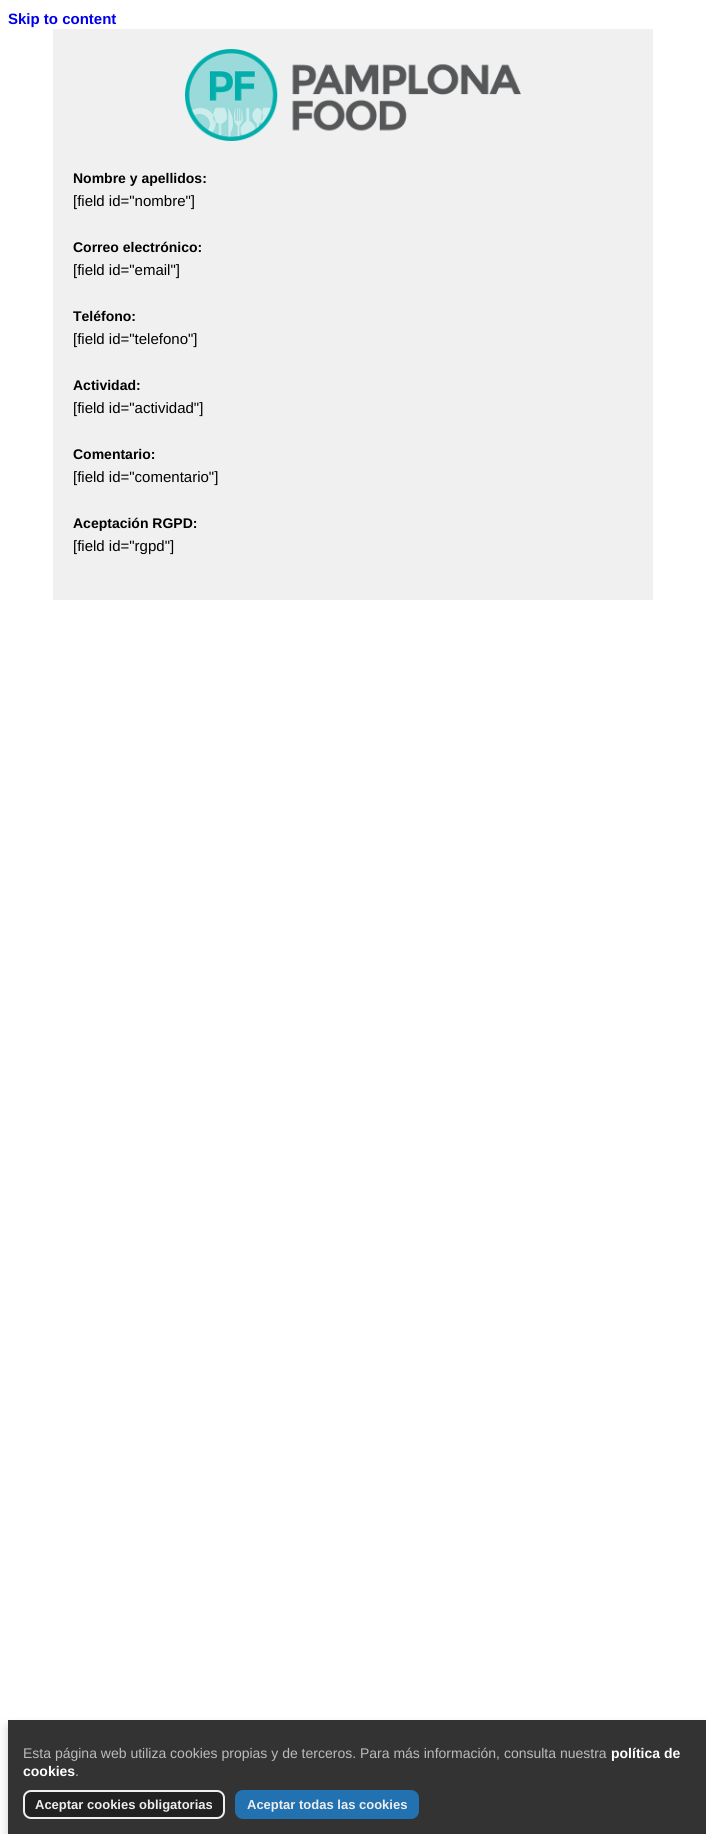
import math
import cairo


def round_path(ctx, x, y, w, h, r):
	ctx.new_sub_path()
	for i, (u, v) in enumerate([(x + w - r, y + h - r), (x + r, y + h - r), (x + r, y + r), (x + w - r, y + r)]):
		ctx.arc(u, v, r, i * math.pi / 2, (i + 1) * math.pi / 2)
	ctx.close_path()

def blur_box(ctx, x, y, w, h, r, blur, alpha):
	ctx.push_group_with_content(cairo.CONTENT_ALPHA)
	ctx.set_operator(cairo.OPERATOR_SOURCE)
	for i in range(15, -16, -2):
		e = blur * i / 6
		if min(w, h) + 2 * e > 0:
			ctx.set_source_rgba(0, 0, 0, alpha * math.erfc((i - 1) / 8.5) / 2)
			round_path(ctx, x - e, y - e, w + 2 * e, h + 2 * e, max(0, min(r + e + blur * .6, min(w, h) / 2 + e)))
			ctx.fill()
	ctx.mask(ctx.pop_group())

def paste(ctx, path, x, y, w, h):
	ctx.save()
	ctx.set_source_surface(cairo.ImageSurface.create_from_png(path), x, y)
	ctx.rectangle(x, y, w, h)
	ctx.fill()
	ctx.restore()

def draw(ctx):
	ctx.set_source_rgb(1, 1, 1)
	ctx.paint()
	ctx.select_font_face('Liberation Sans', cairo.FONT_SLANT_NORMAL, cairo.FONT_WEIGHT_BOLD)
	ctx.set_font_size(15)
	ctx.set_source_rgb(0, 0, 0.933)
	ctx.move_to(8, 24)
	ctx.show_text('Skip to content')
	ctx.set_source_rgb(0.941, 0.941, 0.941)
	ctx.rectangle(53, 29, 600, 571)
	ctx.fill()
	paste(ctx, 'media/1.png', 185, 49, 336, 92)
	ctx.set_font_size(14)
	ctx.set_source_rgb(0, 0, 0)
	ctx.move_to(73, 183)
	ctx.show_text('Nombre y apellidos:')
	ctx.select_font_face('Liberation Sans')
	ctx.set_font_size(15)
	ctx.move_to(73, 206)
	ctx.show_text('[field id="nombre"]')
	ctx.select_font_face('Liberation Sans', cairo.FONT_SLANT_NORMAL, cairo.FONT_WEIGHT_BOLD)
	ctx.set_font_size(14)
	ctx.move_to(73, 252)
	ctx.show_text('Correo electrónico:')
	ctx.select_font_face('Liberation Sans')
	ctx.set_font_size(15)
	ctx.move_to(73, 275)
	ctx.show_text('[field id="email"]')
	ctx.select_font_face('Liberation Sans', cairo.FONT_SLANT_NORMAL, cairo.FONT_WEIGHT_BOLD)
	ctx.set_font_size(14)
	ctx.move_to(73, 321)
	ctx.show_text('Teléfono:')
	ctx.select_font_face('Liberation Sans')
	ctx.set_font_size(15)
	ctx.move_to(73, 344)
	ctx.show_text('[field id="telefono"]')
	ctx.select_font_face('Liberation Sans', cairo.FONT_SLANT_NORMAL, cairo.FONT_WEIGHT_BOLD)
	ctx.set_font_size(14)
	ctx.move_to(73, 390)
	ctx.show_text('Actividad:')
	ctx.select_font_face('Liberation Sans')
	ctx.set_font_size(15)
	ctx.move_to(73, 413)
	ctx.show_text('[field id="actividad"]')
	ctx.select_font_face('Liberation Sans', cairo.FONT_SLANT_NORMAL, cairo.FONT_WEIGHT_BOLD)
	ctx.set_font_size(14)
	ctx.move_to(73, 459)
	ctx.show_text('Comentario:')
	ctx.select_font_face('Liberation Sans')
	ctx.set_font_size(15)
	ctx.move_to(73, 482)
	ctx.show_text('[field id="comentario"]')
	ctx.select_font_face('Liberation Sans', cairo.FONT_SLANT_NORMAL, cairo.FONT_WEIGHT_BOLD)
	ctx.set_font_size(14)
	ctx.move_to(73, 528)
	ctx.show_text('Aceptación RGPD:')
	ctx.select_font_face('Liberation Sans')
	ctx.set_font_size(15)
	ctx.move_to(73, 551)
	ctx.show_text('[field id="rgpd"]')
	ctx.set_source_rgb(0, 0, 0)
	blur_box(ctx, 8, 1727, 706, 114, 0, 5, 0.2)
	ctx.set_source_rgb(0.2, 0.2, 0.2)
	ctx.rectangle(8, 1720, 698, 114)
	ctx.fill()
	ctx.set_font_size(14)
	ctx.set_source_rgb(0.733, 0.733, 0.733)
	ctx.move_to(23, 1758)
	ctx.show_text('Esta página web utiliza cookies propias y de terceros. Para más información, consulta nuestra')
	ctx.select_font_face('Liberation Sans', cairo.FONT_SLANT_NORMAL, cairo.FONT_WEIGHT_BOLD)
	ctx.set_source_rgb(1, 1, 1)
	ctx.move_to(611, 1758)
	ctx.show_text('política de')
	ctx.move_to(23, 1776)
	ctx.show_text('cookies')
	ctx.select_font_face('Liberation Sans')
	ctx.set_source_rgb(0.733, 0.733, 0.733)
	ctx.move_to(75, 1776)
	ctx.show_text('.')
	ctx.set_source_rgb(0.133, 0.133, 0.133)
	round_path(ctx, 24, 1791, 200, 27, 7)
	ctx.fill_preserve()
	ctx.set_source_rgb(0.933, 0.933, 0.933)
	ctx.stroke()
	ctx.select_font_face('Liberation Sans', cairo.FONT_SLANT_NORMAL, cairo.FONT_WEIGHT_BOLD)
	ctx.set_font_size(13)
	ctx.move_to(35, 1809)
	ctx.show_text('Aceptar cookies obligatorias')
	ctx.set_source_rgb(0.133, 0.443, 0.694)
	round_path(ctx, 236, 1791, 182, 27, 7)
	ctx.fill_preserve()
	ctx.stroke()
	ctx.set_source_rgb(0.933, 0.933, 0.933)
	ctx.move_to(247, 1809)
	ctx.show_text('Aceptar todas las cookies')


surface = cairo.ImageSurface(cairo.FORMAT_RGB24, 706, 1834)
ctx = cairo.Context(surface)
options = cairo.FontOptions()
options.set_hint_metrics(cairo.HINT_METRICS_OFF)
options.set_hint_style(cairo.HINT_STYLE_NONE)
ctx.set_font_options(options)
ctx.set_miter_limit(4)
draw(ctx)
surface.write_to_png('image.png')
